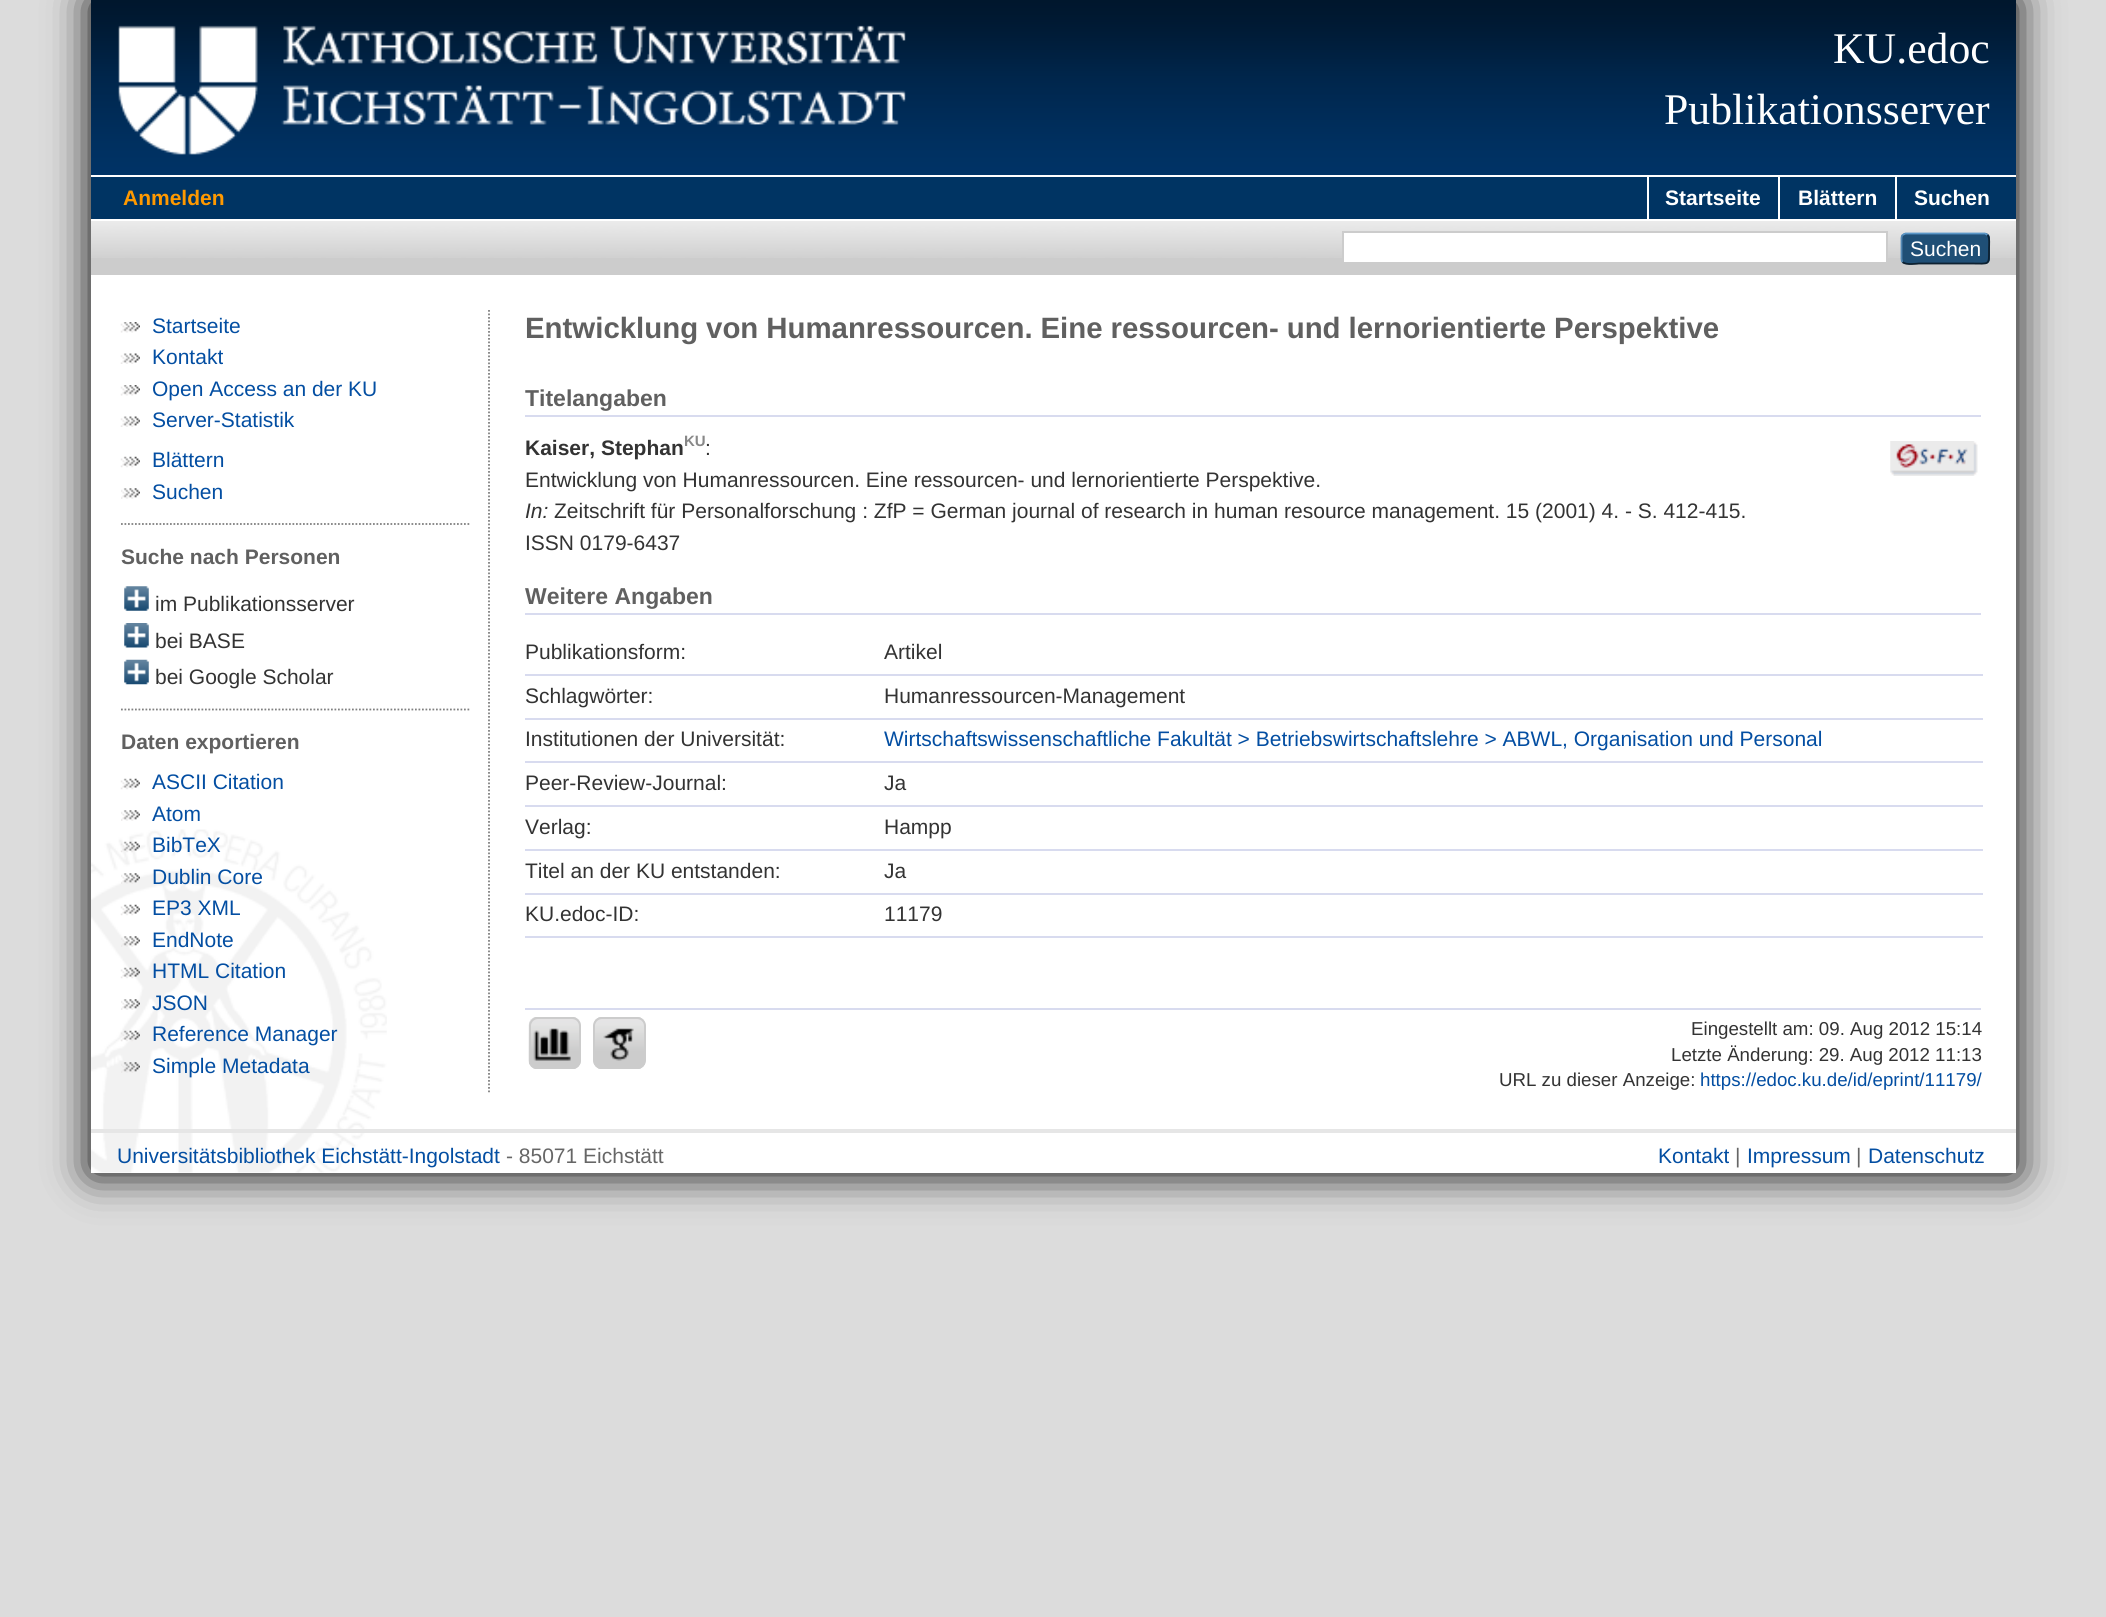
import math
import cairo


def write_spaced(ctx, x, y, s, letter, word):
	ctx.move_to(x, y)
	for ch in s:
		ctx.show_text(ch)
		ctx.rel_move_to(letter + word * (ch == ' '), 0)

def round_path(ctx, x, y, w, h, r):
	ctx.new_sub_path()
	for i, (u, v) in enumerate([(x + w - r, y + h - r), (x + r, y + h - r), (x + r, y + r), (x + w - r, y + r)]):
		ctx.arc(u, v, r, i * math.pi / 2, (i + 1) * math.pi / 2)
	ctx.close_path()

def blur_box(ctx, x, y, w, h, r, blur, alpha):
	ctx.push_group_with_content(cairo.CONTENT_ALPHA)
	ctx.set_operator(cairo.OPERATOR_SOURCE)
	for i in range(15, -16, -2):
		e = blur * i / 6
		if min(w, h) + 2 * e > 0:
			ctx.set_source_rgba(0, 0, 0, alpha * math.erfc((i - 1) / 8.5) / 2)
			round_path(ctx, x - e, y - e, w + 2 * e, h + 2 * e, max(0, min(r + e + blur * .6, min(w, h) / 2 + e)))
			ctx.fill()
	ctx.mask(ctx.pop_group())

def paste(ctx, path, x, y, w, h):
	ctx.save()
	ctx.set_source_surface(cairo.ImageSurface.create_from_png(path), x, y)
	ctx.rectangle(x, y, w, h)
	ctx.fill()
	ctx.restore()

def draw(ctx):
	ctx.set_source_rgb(0.863, 0.863, 0.863)
	ctx.paint()
	ctx.set_source_rgb(0, 0, 0)
	blur_box(ctx, 91, 0, 1925, 1173, 0, 21, 1)
	ctx.set_source_rgb(1, 1, 1)
	ctx.rectangle(91, 275, 1925, 898)
	ctx.fill()
	paste(ctx, 'media/1.png', 91, 829, 296, 344)
	paste(ctx, 'media/2.png', 91, 0, 1925, 175)
	paste(ctx, 'media/3.png', 118, 25, 788, 130)
	ctx.select_font_face('Liberation Serif')
	ctx.set_font_size(43.75)
	ctx.move_to(1833, 63)
	ctx.show_text('KU.edoc')
	ctx.move_to(1664, 124)
	ctx.show_text('Publikationsserver')
	ctx.set_source_rgb(0, 0.204, 0.388)
	ctx.rectangle(91, 177, 1925, 42)
	ctx.fill()
	ctx.set_source_rgb(1, 1, 1)
	ctx.rectangle(91, 175, 1925, 2)
	ctx.rectangle(91, 219, 1925, 2)
	ctx.fill()
	ctx.select_font_face('Liberation Sans', cairo.FONT_SLANT_NORMAL, cairo.FONT_WEIGHT_BOLD)
	ctx.set_font_size(21)
	ctx.set_source_rgb(1, 0.6, 0)
	ctx.move_to(123, 205)
	ctx.show_text('Anmelden')
	ctx.set_source_rgb(1, 1, 1)
	ctx.rectangle(1647, 177, 2, 42)
	ctx.fill()
	ctx.move_to(1665, 205)
	ctx.show_text('Startseite')
	ctx.rectangle(1778, 177, 2, 42)
	ctx.fill()
	ctx.move_to(1798, 205)
	ctx.show_text('Blättern')
	ctx.rectangle(1895, 177, 2, 42)
	ctx.fill()
	ctx.move_to(1914, 205)
	ctx.show_text('Suchen')
	ctx.set_source_rgb(0.8, 0.8, 0.8)
	ctx.rectangle(91, 221, 1925, 54)
	ctx.fill()
	paste(ctx, 'media/4.png', 91, 221, 1925, 37)
	ctx.set_source_rgb(1, 1, 1)
	ctx.rectangle(1343, 232, 544, 31)
	ctx.fill_preserve()
	ctx.set_source_rgb(0.8, 0.8, 0.8)
	ctx.stroke()
	ctx.set_source_rgb(0.122, 0.31, 0.463)
	round_path(ctx, 1901, 233, 89, 31, 5)
	ctx.fill()
	ctx.new_path()
	ctx.move_to(1902.5, 235)
	ctx.line_to(1905.5, 233.5)
	ctx.line_to(1985, 233.5)
	ctx.line_to(1987.5, 235)
	ctx.set_source_rgb(0.357, 0.592, 0.78)
	ctx.set_line_width(1.8)
	ctx.stroke()
	ctx.new_path()
	ctx.move_to(1987.5, 235)
	ctx.curve_to(1990, 237.5, 1989, 245.5, 1989, 248.5)
	ctx.curve_to(1989, 266, 1990, 263.5, 1971.5, 263.5)
	ctx.line_to(1919, 263.5)
	ctx.curve_to(1917.5, 263.5, 1906, 265.5, 1902.5, 262)
	ctx.set_source_rgb(0.051, 0.129, 0.192)
	ctx.stroke()
	ctx.new_path()
	ctx.move_to(1902.5, 262)
	ctx.curve_to(1902, 261.5, 1901.5, 260, 1901.5, 259)
	ctx.line_to(1901.5, 238)
	ctx.curve_to(1901.5, 237, 1902, 235.5, 1902.5, 235)
	ctx.set_source_rgb(0.322, 0.529, 0.702)
	ctx.stroke()
	ctx.select_font_face('Liberation Sans')
	ctx.set_source_rgb(1, 1, 1)
	ctx.move_to(1910, 256)
	ctx.show_text('Suchen')
	paste(ctx, 'media/5.png', 120, 322, 20, 11)
	ctx.set_source_rgb(0.012, 0.306, 0.635)
	ctx.move_to(152, 333)
	ctx.show_text('Startseite')
	paste(ctx, 'media/6.png', 120, 353, 20, 11)
	ctx.move_to(152, 364)
	ctx.show_text('Kontakt')
	paste(ctx, 'media/5.png', 120, 385, 20, 11)
	ctx.move_to(152, 396)
	ctx.show_text('Open Access an der KU')
	paste(ctx, 'media/6.png', 120, 416, 20, 11)
	ctx.move_to(152, 427)
	ctx.show_text('Server-Statistik')
	paste(ctx, 'media/7.png', 120, 456, 20, 12)
	ctx.move_to(152, 467)
	ctx.show_text('Blättern')
	paste(ctx, 'media/8.png', 121, 488, 19, 11)
	ctx.move_to(152, 499)
	ctx.show_text('Suchen')
	ctx.new_path()
	ctx.move_to(121, 524)
	ctx.line_to(471, 524)
	ctx.set_source_rgb(0.502, 0.502, 0.502)
	ctx.set_dash([1.75, 1.75])
	ctx.stroke()
	ctx.select_font_face('Liberation Sans', cairo.FONT_SLANT_NORMAL, cairo.FONT_WEIGHT_BOLD)
	ctx.set_source_rgb(0.376, 0.376, 0.376)
	ctx.move_to(121, 564)
	ctx.show_text('Suche nach Personen')
	paste(ctx, 'media/9.png', 124, 586, 25, 25)
	ctx.select_font_face('Liberation Sans')
	ctx.set_source_rgb(0.2, 0.2, 0.2)
	ctx.move_to(155, 611)
	ctx.show_text('im Publikationsserver')
	paste(ctx, 'media/10.png', 124, 623, 25, 25)
	ctx.move_to(155, 648)
	ctx.show_text('bei BASE')
	paste(ctx, 'media/11.png', 124, 659, 25, 26)
	ctx.move_to(155, 684)
	ctx.show_text('bei Google Scholar')
	ctx.new_path()
	ctx.move_to(121, 709.5)
	ctx.line_to(471, 709.5)
	ctx.set_source_rgb(0.502, 0.502, 0.502)
	ctx.stroke()
	ctx.select_font_face('Liberation Sans', cairo.FONT_SLANT_NORMAL, cairo.FONT_WEIGHT_BOLD)
	ctx.set_source_rgb(0.376, 0.376, 0.376)
	ctx.move_to(121, 749)
	ctx.show_text('Daten exportieren')
	paste(ctx, 'media/7.png', 120, 778, 20, 12)
	ctx.select_font_face('Liberation Sans')
	ctx.set_source_rgb(0.012, 0.306, 0.635)
	ctx.move_to(152, 789)
	ctx.show_text('ASCII Citation')
	paste(ctx, 'media/8.png', 121, 810, 19, 11)
	ctx.move_to(152, 821)
	ctx.show_text('Atom')
	paste(ctx, 'media/12.png', 120, 841, 20, 12)
	ctx.move_to(152, 852)
	ctx.show_text('BibTeX')
	paste(ctx, 'media/13.png', 121, 873, 19, 11)
	ctx.move_to(152, 884)
	ctx.show_text('Dublin Core')
	paste(ctx, 'media/7.png', 120, 904, 20, 12)
	ctx.move_to(152, 915)
	ctx.show_text('EP3 XML')
	paste(ctx, 'media/14.png', 121, 936, 19, 11)
	ctx.move_to(152, 947)
	ctx.show_text('EndNote')
	paste(ctx, 'media/15.png', 120, 967, 20, 12)
	ctx.move_to(152, 978)
	ctx.show_text('HTML Citation')
	paste(ctx, 'media/16.png', 121, 999, 19, 11)
	ctx.move_to(152, 1010)
	ctx.show_text('JSON')
	paste(ctx, 'media/17.png', 120, 1030, 20, 12)
	ctx.move_to(152, 1041)
	ctx.show_text('Reference Manager')
	paste(ctx, 'media/18.png', 121, 1062, 19, 11)
	ctx.move_to(152, 1073)
	ctx.show_text('Simple Metadata')
	ctx.new_path()
	ctx.move_to(489, 310)
	ctx.line_to(489, 1094)
	ctx.set_source_rgb(0.502, 0.502, 0.502)
	ctx.stroke()
	ctx.select_font_face('Liberation Sans', cairo.FONT_SLANT_NORMAL, cairo.FONT_WEIGHT_BOLD)
	ctx.set_font_size(29.4)
	ctx.set_source_rgb(0.376, 0.376, 0.376)
	write_spaced(ctx, 525, 338, 'Entwicklung von Humanressourcen. Eine ressourcen- und lernorientierte Perspektive', 0, -0.25)
	ctx.set_source_rgb(0.847, 0.859, 0.937)
	ctx.rectangle(525, 415, 1456, 2)
	ctx.fill()
	ctx.set_font_size(23)
	ctx.set_source_rgb(0.376, 0.376, 0.376)
	ctx.move_to(525, 406)
	ctx.show_text('Titelangaben')
	ctx.set_font_size(21)
	ctx.set_source_rgb(0.2, 0.2, 0.2)
	ctx.move_to(525, 455)
	ctx.show_text('Kaiser, Stephan')
	ctx.set_font_size(15)
	ctx.set_source_rgb(0.533, 0.533, 0.533)
	ctx.move_to(684, 446)
	ctx.show_text('KU')
	ctx.select_font_face('Liberation Sans')
	ctx.set_font_size(21)
	ctx.set_source_rgb(0.2, 0.2, 0.2)
	ctx.move_to(705, 455)
	ctx.show_text(':')
	ctx.move_to(525, 487)
	ctx.show_text('Entwicklung von Humanressourcen. Eine ressourcen- und lernorientierte Perspektive.')
	ctx.select_font_face('Liberation Sans', cairo.FONT_SLANT_ITALIC)
	ctx.move_to(525, 518)
	ctx.show_text('In:')
	ctx.select_font_face('Liberation Sans')
	ctx.move_to(554, 518)
	ctx.show_text('Zeitschrift für Personalforschung : ZfP = German journal of research in human resource management. 15 (2001) 4. - S. 412-415.')
	ctx.move_to(525, 550)
	ctx.show_text('ISSN 0179-6437')
	paste(ctx, 'media/19.png', 1890, 441, 88, 35)
	ctx.set_source_rgb(0.847, 0.859, 0.937)
	ctx.rectangle(525, 613, 1456, 2)
	ctx.fill()
	ctx.select_font_face('Liberation Sans', cairo.FONT_SLANT_NORMAL, cairo.FONT_WEIGHT_BOLD)
	ctx.set_font_size(23)
	ctx.set_source_rgb(0.376, 0.376, 0.376)
	ctx.move_to(525, 604)
	ctx.show_text('Weitere Angaben')
	ctx.select_font_face('Liberation Sans')
	ctx.set_font_size(21)
	ctx.set_source_rgb(0.2, 0.2, 0.2)
	ctx.move_to(525, 659)
	ctx.show_text('Publikationsform:')
	ctx.set_source_rgb(0.847, 0.859, 0.937)
	ctx.rectangle(525, 674, 1458, 2)
	ctx.fill()
	ctx.set_source_rgb(0.2, 0.2, 0.2)
	ctx.move_to(884, 659)
	ctx.show_text('Artikel')
	ctx.move_to(525, 703)
	ctx.show_text('Schlagwörter:')
	ctx.set_source_rgb(0.847, 0.859, 0.937)
	ctx.rectangle(525, 718, 1458, 2)
	ctx.fill()
	ctx.set_source_rgb(0.2, 0.2, 0.2)
	ctx.move_to(884, 703)
	ctx.show_text('Humanressourcen-Management')
	ctx.move_to(525, 746)
	ctx.show_text('Institutionen der Universität:')
	ctx.set_source_rgb(0.847, 0.859, 0.937)
	ctx.rectangle(525, 761, 1458, 2)
	ctx.fill()
	ctx.set_source_rgb(0.012, 0.306, 0.635)
	ctx.move_to(884, 746)
	ctx.show_text('Wirtschaftswissenschaftliche Fakultät > Betriebswirtschaftslehre > ABWL, Organisation und Personal')
	ctx.set_source_rgb(0.2, 0.2, 0.2)
	ctx.move_to(525, 790)
	ctx.show_text('Peer-Review-Journal:')
	ctx.set_source_rgb(0.847, 0.859, 0.937)
	ctx.rectangle(525, 805, 1458, 2)
	ctx.fill()
	ctx.set_source_rgb(0.2, 0.2, 0.2)
	ctx.move_to(884, 790)
	ctx.show_text('Ja')
	ctx.move_to(525, 834)
	ctx.show_text('Verlag:')
	ctx.set_source_rgb(0.847, 0.859, 0.937)
	ctx.rectangle(525, 849, 1458, 2)
	ctx.fill()
	ctx.set_source_rgb(0.2, 0.2, 0.2)
	ctx.move_to(884, 834)
	ctx.show_text('Hampp')
	ctx.move_to(525, 878)
	ctx.show_text('Titel an der KU entstanden:')
	ctx.set_source_rgb(0.847, 0.859, 0.937)
	ctx.rectangle(525, 893, 1458, 2)
	ctx.fill()
	ctx.set_source_rgb(0.2, 0.2, 0.2)
	ctx.move_to(884, 878)
	ctx.show_text('Ja')
	ctx.move_to(525, 921)
	ctx.show_text('KU.edoc-ID:')
	ctx.set_source_rgb(0.847, 0.859, 0.937)
	ctx.rectangle(525, 936, 1458, 2)
	ctx.fill()
	ctx.set_source_rgb(0.2, 0.2, 0.2)
	ctx.move_to(884, 921)
	ctx.show_text('11179')
	ctx.set_source_rgb(0.847, 0.859, 0.937)
	ctx.rectangle(525, 1008, 1456, 2)
	ctx.fill()
	paste(ctx, 'media/20.png', 528, 1017, 53, 52)
	round_path(ctx, 530, 1018, 50, 50, 8)
	ctx.set_source_rgb(0.8, 0.8, 0.8)
	ctx.set_line_width(2)
	ctx.set_dash([])
	ctx.stroke()
	paste(ctx, 'media/21.png', 533, 1028, 38, 33)
	paste(ctx, 'media/22.png', 593, 1017, 53, 52)
	round_path(ctx, 594, 1018, 51, 50, 8)
	ctx.stroke()
	paste(ctx, 'media/23.png', 603, 1028, 31, 33)
	ctx.set_font_size(18.7)
	ctx.set_source_rgb(0.2, 0.2, 0.2)
	for x, y, s in [
		(1691, 1035, 'Eingestellt am: 09. Aug 2012 15:14'),
		(1671, 1061, 'Letzte Änderung: 29. Aug 2012 11:13'),
		(1499, 1086, 'URL zu dieser Anzeige:'),
	]:
		ctx.move_to(x, y)
		ctx.show_text(s)
	ctx.set_source_rgb(0.012, 0.306, 0.635)
	ctx.move_to(1700, 1086)
	ctx.show_text('https://edoc.ku.de/id/eprint/11179/')
	ctx.set_source_rgb(0.902, 0.902, 0.902)
	ctx.rectangle(91, 1129, 1925, 4)
	ctx.fill()
	ctx.set_font_size(21)
	ctx.set_source_rgb(0.012, 0.306, 0.635)
	ctx.move_to(117, 1163)
	ctx.show_text('Universitätsbibliothek Eichstätt-Ingolstadt')
	ctx.set_source_rgb(0.4, 0.4, 0.4)
	ctx.move_to(506, 1163)
	ctx.show_text('- 85071 Eichstätt')
	ctx.set_source_rgb(0.012, 0.306, 0.635)
	ctx.move_to(1658, 1163)
	ctx.show_text('Kontakt')
	ctx.set_source_rgb(0.4, 0.4, 0.4)
	ctx.move_to(1735, 1163)
	ctx.show_text('|')
	ctx.set_source_rgb(0.012, 0.306, 0.635)
	ctx.move_to(1747, 1163)
	ctx.show_text('Impressum')
	ctx.set_source_rgb(0.4, 0.4, 0.4)
	ctx.move_to(1856, 1163)
	ctx.show_text('|')
	ctx.set_source_rgb(0.012, 0.306, 0.635)
	ctx.move_to(1868, 1163)
	ctx.show_text('Datenschutz')


surface = cairo.ImageSurface(cairo.FORMAT_RGB24, 2106, 1617)
ctx = cairo.Context(surface)
options = cairo.FontOptions()
options.set_hint_metrics(cairo.HINT_METRICS_OFF)
options.set_hint_style(cairo.HINT_STYLE_NONE)
ctx.set_font_options(options)
ctx.set_miter_limit(4)
draw(ctx)
surface.write_to_png('image.png')
